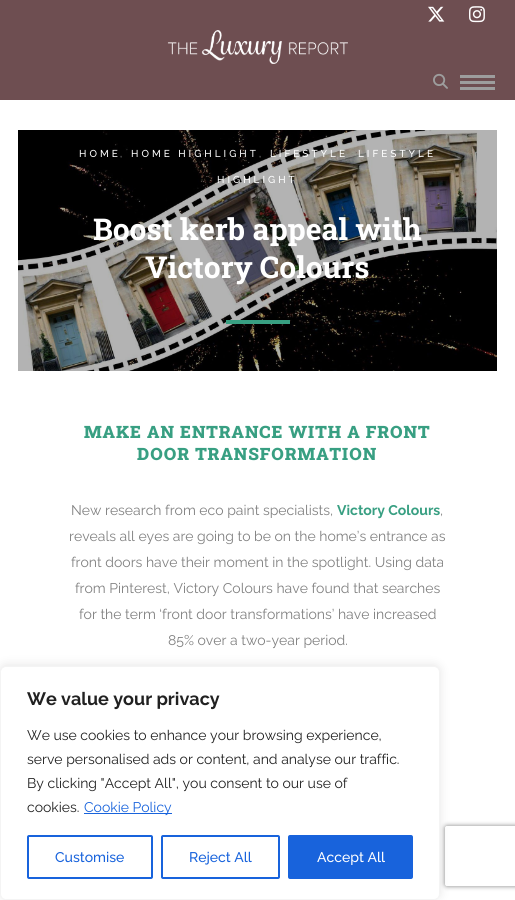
import math
import cairo


def write_spaced(ctx, x, y, s, letter, word):
	ctx.move_to(x, y)
	for ch in s:
		ctx.show_text(ch)
		ctx.rel_move_to(letter + word * (ch == ' '), 0)

def round_path(ctx, x, y, w, h, r):
	ctx.new_sub_path()
	for i, (u, v) in enumerate([(x + w - r, y + h - r), (x + r, y + h - r), (x + r, y + r), (x + w - r, y + r)]):
		ctx.arc(u, v, r, i * math.pi / 2, (i + 1) * math.pi / 2)
	ctx.close_path()

def blur_box(ctx, x, y, w, h, r, blur, alpha):
	ctx.push_group_with_content(cairo.CONTENT_ALPHA)
	ctx.set_operator(cairo.OPERATOR_SOURCE)
	for i in range(15, -16, -2):
		e = blur * i / 6
		if min(w, h) + 2 * e > 0:
			ctx.set_source_rgba(0, 0, 0, alpha * math.erfc((i - 1) / 8.5) / 2)
			round_path(ctx, x - e, y - e, w + 2 * e, h + 2 * e, max(0, min(r + e + blur * .6, min(w, h) / 2 + e)))
			ctx.fill()
	ctx.mask(ctx.pop_group())

def paste(ctx, path, x, y, w, h):
	ctx.save()
	ctx.set_source_surface(cairo.ImageSurface.create_from_png(path), x, y)
	ctx.rectangle(x, y, w, h)
	ctx.fill()
	ctx.restore()

def draw(ctx):
	ctx.set_source_rgb(1, 1, 1)
	ctx.paint()
	ctx.set_source_rgb(0.431, 0.306, 0.318)
	ctx.rectangle(0, 0, 515, 100)
	ctx.fill()
	paste(ctx, 'media/1.png', 167, 30, 181, 34)
	paste(ctx, 'media/2.png', 428, 6, 17, 16)
	paste(ctx, 'media/3.png', 469, 6, 16, 17)
	paste(ctx, 'media/4.png', 433, 73, 15, 16)
	ctx.set_source_rgb(0.616, 0.616, 0.616)
	ctx.rectangle(460, 81, 35, 3)
	ctx.rectangle(460, 75, 35, 3)
	ctx.rectangle(460, 87, 35, 3)
	ctx.fill()
	paste(ctx, 'media/5.png', 18, 130, 479, 241)
	ctx.select_font_face('Raleway Medium')
	ctx.set_font_size(10)
	ctx.set_source_rgb(1, 1, 1)
	write_spaced(ctx, 79, 157, 'HOME', 3, 0)
	ctx.set_source_rgb(0.506, 0.506, 0.506)
	write_spaced(ctx, 120, 157, ',', 3, 0)
	ctx.set_source_rgb(1, 1, 1)
	write_spaced(ctx, 131, 157, 'HOME HIGHLIGHT', 3, 0)
	ctx.set_source_rgb(0.506, 0.506, 0.506)
	write_spaced(ctx, 259, 157, ',', 3, 0)
	ctx.set_source_rgb(1, 1, 1)
	for x, y, s in [
		(270, 157, 'LIFESTYLE'),
		(358, 157, 'LIFESTYLE'),
		(217, 183, 'HIGHLIGHT'),
	]:
		write_spaced(ctx, x, y, s, 3, 0)
	ctx.select_font_face('Roboto Slab', cairo.FONT_SLANT_NORMAL, cairo.FONT_WEIGHT_BOLD)
	ctx.set_font_size(30)
	ctx.move_to(93, 240)
	ctx.show_text('Boost kerb appeal with')
	ctx.move_to(145, 278)
	ctx.show_text('Victory Colours')
	ctx.set_source_rgb(0.22, 0.624, 0.51)
	ctx.rectangle(226, 320, 64, 4)
	ctx.fill()
	ctx.select_font_face('Roboto Slab Black')
	ctx.set_font_size(17)
	write_spaced(ctx, 84, 438, 'MAKE AN ENTRANCE WITH A FRONT', 1, 0)
	write_spaced(ctx, 137, 460, 'DOOR TRANSFORMATION', 1, 0)
	ctx.select_font_face('Raleway')
	ctx.set_font_size(14)
	ctx.set_source_rgb(0.506, 0.506, 0.506)
	ctx.move_to(71, 515)
	ctx.show_text('New research from eco paint specialists,')
	ctx.select_font_face('Raleway', cairo.FONT_SLANT_NORMAL, cairo.FONT_WEIGHT_BOLD)
	ctx.set_source_rgb(0.22, 0.624, 0.51)
	ctx.move_to(337, 515)
	ctx.show_text('Victory Colours')
	ctx.select_font_face('Raleway')
	ctx.set_source_rgb(0.506, 0.506, 0.506)
	for x, y, s in [
		(440, 515, ','),
		(69, 541, 'reveals all eyes are going to be on the home’s entrance as'),
		(71, 567, 'front doors have their moment in the spotlight. Using data'),
		(75, 593, 'from Pinterest, Victory Colours have found that searches'),
		(79, 619, 'for the term ‘front door transformations’ have increased'),
		(168, 645, '85% over a two-year period.'),
	]:
		ctx.move_to(x, y)
		ctx.show_text(s)
	ctx.set_source_rgb(0.675, 0.671, 0.671)
	blur_box(ctx, 0, 665, 440, 234, 6, 5, 0.3)
	ctx.save()
	ctx.set_fill_rule(cairo.FILL_RULE_EVEN_ODD)
	ctx.new_path()
	ctx.move_to(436, 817)
	ctx.line_to(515, 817)
	ctx.line_to(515, 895)
	ctx.line_to(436, 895)
	ctx.close_path()
	ctx.move_to(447, 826)
	ctx.line_to(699, 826)
	ctx.curve_to(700, 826, 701, 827, 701, 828)
	ctx.line_to(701, 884)
	ctx.curve_to(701, 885, 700, 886, 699, 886)
	ctx.line_to(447, 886)
	ctx.curve_to(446, 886, 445, 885, 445, 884)
	ctx.line_to(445, 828)
	ctx.curve_to(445, 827, 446, 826, 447, 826)
	ctx.close_path()
	ctx.clip()
	ctx.set_source_rgb(0.502, 0.502, 0.502)
	blur_box(ctx, 445, 826, 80, 60, 2, 2.5, 1)
	ctx.restore()
	ctx.set_source_rgb(1, 1, 1)
	round_path(ctx, 0.5, 666.5, 439, 233, 5.5)
	ctx.fill_preserve()
	ctx.set_source_rgb(0.957, 0.957, 0.957)
	ctx.set_line_width(1)
	ctx.stroke()
	ctx.select_font_face('Raleway', cairo.FONT_SLANT_NORMAL, cairo.FONT_WEIGHT_BOLD)
	ctx.set_font_size(18)
	ctx.set_source_rgb(0.129, 0.129, 0.129)
	ctx.move_to(27, 705)
	ctx.show_text('We value your privacy')
	ctx.select_font_face('Raleway')
	ctx.set_font_size(14)
	for x, y, s in [
		(27, 740, 'We use cookies to enhance your browsing experience,'),
		(27, 764, 'serve personalised ads or content, and analyse our traffic.'),
		(27, 788, 'By clicking "Accept All", you consent to our use of'),
		(27, 812, 'cookies.'),
	]:
		ctx.move_to(x, y)
		ctx.show_text(s)
	ctx.set_source_rgb(0.094, 0.388, 0.863)
	ctx.rectangle(84, 813, 88, 1)
	ctx.fill()
	ctx.move_to(84, 812)
	ctx.show_text('Cookie Policy')
	round_path(ctx, 28, 836, 124, 42, 1)
	ctx.set_line_width(2)
	ctx.stroke()
	ctx.select_font_face('Raleway Medium')
	ctx.move_to(55, 862)
	ctx.show_text('Customise')
	round_path(ctx, 162, 836, 117, 42, 1)
	ctx.stroke()
	ctx.move_to(189, 862)
	ctx.show_text('Reject All')
	round_path(ctx, 289, 836, 123, 42, 1)
	ctx.fill_preserve()
	ctx.stroke()
	ctx.set_source_rgb(1, 1, 1)
	ctx.move_to(317, 862)
	ctx.show_text('Accept All')


surface = cairo.ImageSurface(cairo.FORMAT_RGB24, 515, 900)
ctx = cairo.Context(surface)
options = cairo.FontOptions()
options.set_hint_metrics(cairo.HINT_METRICS_OFF)
options.set_hint_style(cairo.HINT_STYLE_NONE)
ctx.set_font_options(options)
ctx.set_miter_limit(4)
draw(ctx)
surface.write_to_png('image.png')
